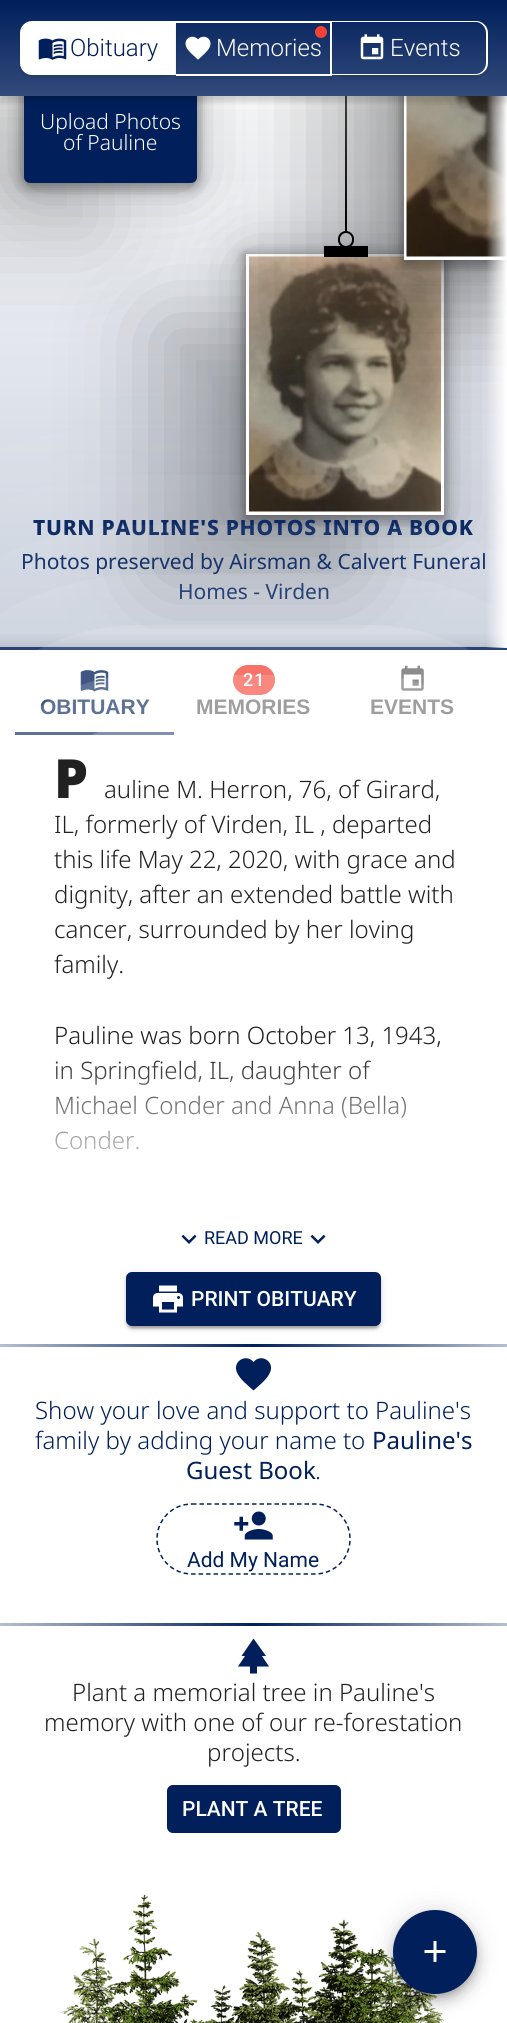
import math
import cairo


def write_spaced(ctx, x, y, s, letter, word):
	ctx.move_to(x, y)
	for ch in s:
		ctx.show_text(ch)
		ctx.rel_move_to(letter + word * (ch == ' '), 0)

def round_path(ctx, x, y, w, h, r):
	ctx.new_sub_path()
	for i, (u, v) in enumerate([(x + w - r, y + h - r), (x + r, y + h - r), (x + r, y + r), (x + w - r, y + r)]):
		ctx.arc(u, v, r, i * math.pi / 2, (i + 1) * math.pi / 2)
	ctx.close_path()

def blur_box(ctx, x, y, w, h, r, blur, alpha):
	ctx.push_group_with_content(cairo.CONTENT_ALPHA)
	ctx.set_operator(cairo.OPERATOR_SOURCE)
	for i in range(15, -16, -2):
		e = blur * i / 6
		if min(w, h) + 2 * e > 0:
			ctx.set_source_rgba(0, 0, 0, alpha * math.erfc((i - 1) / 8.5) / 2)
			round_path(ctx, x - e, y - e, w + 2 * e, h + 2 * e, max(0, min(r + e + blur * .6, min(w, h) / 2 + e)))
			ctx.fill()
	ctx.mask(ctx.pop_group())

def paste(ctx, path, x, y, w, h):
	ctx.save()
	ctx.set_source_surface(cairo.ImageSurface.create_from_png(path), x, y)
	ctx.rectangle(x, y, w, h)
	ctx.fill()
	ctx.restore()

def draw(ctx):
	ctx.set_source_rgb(1, 1, 1)
	ctx.paint()
	ctx.save()
	ctx.rectangle(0, 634, 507, 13)
	ctx.clip()
	ctx.set_source_rgb(0, 0, 0)
	blur_box(ctx, -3, 647, 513, 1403, 0, 9, 0.25)
	ctx.restore()
	gradient = cairo.LinearGradient(253, -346, 254, 647)
	gradient.add_color_stop_rgba(0.4, 0, 0.122, 0.357, 0)
	gradient.add_color_stop_rgba(1, 0, 0.122, 0.357, 0.22)
	ctx.set_source(gradient)
	ctx.rectangle(0, 109, 507, 538)
	ctx.fill()
	ctx.set_source_rgb(0, 0, 0)
	blur_box(ctx, 246, 260, 198, 261, 0, 33, 0.25)
	ctx.set_source_rgb(0, 0.122, 0.357)
	ctx.rectangle(0, 647, 507, 3)
	ctx.fill()
	ctx.save()
	ctx.rectangle(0, 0, 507, 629)
	ctx.clip()
	ctx.set_source_rgb(0, 0, 0)
	blur_box(ctx, 156, 320, 198, 261, 0, 48, 0.25)
	ctx.restore()
	gradient = cairo.LinearGradient(346, -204, 346, 231)
	gradient.add_color_stop_rgba(0, 1, 1, 1, 1)
	gradient.add_color_stop_rgba(1, 0, 0, 0, 1)
	ctx.set_source(gradient)
	ctx.rectangle(345, 96, 2, 135)
	ctx.fill()
	ctx.set_source_rgb(0, 0, 0)
	blur_box(ctx, 243, 254, 204, 267, 0, 6, 0.35)
	ctx.set_source_rgb(1, 1, 1)
	ctx.rectangle(246, 254, 198, 261)
	ctx.fill()
	paste(ctx, 'media/5.png', 249, 256, 192, 256)
	ctx.set_source_rgb(0, 0, 0)
	ctx.rectangle(324, 246, 44, 11)
	ctx.fill()
	round_path(ctx, 339, 232, 14, 15, 7)
	ctx.stroke()
	ctx.set_source_rgb(0, 0, 0)
	blur_box(ctx, 404, -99, 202, 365, 0, 33, 0.25)
	blur_box(ctx, 314, -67, 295, 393, 0, 48, 0.25)
	blur_box(ctx, 401, -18, 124, 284, 0, 6, 0.35)
	ctx.set_source_rgb(1, 1, 1)
	ctx.rectangle(404, 96, 103, 164)
	ctx.fill()
	paste(ctx, 'media/4.png', 406, 96, 101, 161)
	ctx.set_source_rgb(0, 0, 0)
	blur_box(ctx, 24, 17, 173, 172, 6, 33, 0.25)
	blur_box(ctx, -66, 77, 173, 172, 6, 48, 0.15)
	blur_box(ctx, 21, 11, 179, 178, 9, 6, 0.35)
	ctx.set_source_rgb(0, 0.122, 0.357)
	round_path(ctx, 24, 11, 173, 172, 6)
	ctx.fill()
	gradient = cairo.LinearGradient(486, 150, 507, 150)
	gradient.add_color_stop_rgba(0, 1, 1, 1, 0)
	gradient.add_color_stop_rgba(1, 1, 1, 1, 1)
	ctx.set_source(gradient)
	ctx.rectangle(486, 96, 21, 552)
	ctx.fill()
	ctx.set_source_rgb(0, 0, 0)
	blur_box(ctx, 0, 6, 507, 96, 0, 3, 0.15)
	gradient = cairo.LinearGradient(254, 0, 254, 96)
	gradient.add_color_stop_rgba(0, 0, 0.122, 0.357, 1)
	gradient.add_color_stop_rgba(1, 0.2, 0.294, 0.482, 1)
	ctx.set_source(gradient)
	ctx.rectangle(0, 0, 507, 96)
	ctx.fill()
	ctx.set_source_rgb(0, 0, 0)
	blur_box(ctx, 20, 24, 156, 54, 12, 1.5, 0.1)
	ctx.set_source_rgb(1, 1, 1)
	ctx.new_path()
	ctx.move_to(32, 22)
	ctx.line_to(175, 22)
	ctx.line_to(175, 74)
	ctx.line_to(32, 74)
	ctx.curve_to(26, 74, 21, 69, 21, 63)
	ctx.line_to(21, 33)
	ctx.curve_to(21, 27, 26, 22, 32, 22)
	ctx.close_path()
	ctx.fill_preserve()
	ctx.stroke()
	paste(ctx, 'media/1.png', 38, 38, 29, 22)
	ctx.select_font_face('Roboto Light')
	ctx.set_font_size(24)
	ctx.set_source_rgb(0, 0.122, 0.357)
	ctx.move_to(70, 56)
	ctx.show_text('Obituary')
	ctx.save()
	ctx.set_fill_rule(cairo.FILL_RULE_EVEN_ODD)
	ctx.new_path()
	ctx.move_to(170, 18)
	ctx.line_to(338, 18)
	ctx.line_to(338, 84)
	ctx.line_to(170, 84)
	ctx.close_path()
	ctx.move_to(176, 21)
	ctx.line_to(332, 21)
	ctx.line_to(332, 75)
	ctx.line_to(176, 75)
	ctx.close_path()
	ctx.clip()
	ctx.set_source_rgb(0, 0, 0)
	blur_box(ctx, 176, 24, 156, 54, 0, 1.5, 0.1)
	ctx.restore()
	ctx.set_source_rgb(1, 1, 1)
	ctx.rectangle(176, 21, 156, 2)
	ctx.rectangle(330, 21, 2, 54)
	ctx.rectangle(176, 74, 156, 2)
	ctx.fill()
	ctx.set_source_rgb(0.957, 0.263, 0.212)
	ctx.arc(321, 32, 6, 0, 2 * math.pi)
	ctx.fill()
	paste(ctx, 'media/2.png', 185, 36, 26, 24)
	ctx.set_source_rgb(1, 1, 1)
	ctx.move_to(216, 56)
	ctx.show_text('Memories')
	ctx.save()
	ctx.set_fill_rule(cairo.FILL_RULE_EVEN_ODD)
	ctx.new_path()
	ctx.move_to(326, 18)
	ctx.line_to(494, 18)
	ctx.line_to(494, 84)
	ctx.line_to(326, 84)
	ctx.close_path()
	ctx.move_to(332, 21)
	ctx.line_to(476, 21)
	ctx.curve_to(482.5, 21, 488, 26.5, 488, 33)
	ctx.line_to(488, 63)
	ctx.curve_to(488, 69.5, 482.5, 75, 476, 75)
	ctx.line_to(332, 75)
	ctx.close_path()
	ctx.clip()
	ctx.set_source_rgb(0, 0, 0)
	blur_box(ctx, 332, 24, 156, 54, 12, 1.5, 0.1)
	ctx.restore()
	ctx.set_fill_rule(cairo.FILL_RULE_EVEN_ODD)
	ctx.new_path()
	ctx.move_to(332, 21)
	ctx.line_to(476, 21)
	ctx.curve_to(482, 21, 488, 26, 488, 33)
	ctx.line_to(488, 63)
	ctx.curve_to(488, 70, 482, 75, 476, 75)
	ctx.line_to(332, 75)
	ctx.close_path()
	ctx.move_to(332, 22)
	ctx.line_to(476, 22)
	ctx.curve_to(481, 22, 486, 27, 486, 33)
	ctx.line_to(486, 63)
	ctx.curve_to(486, 69, 481, 74, 476, 74)
	ctx.line_to(332, 74)
	ctx.close_path()
	ctx.fill()
	paste(ctx, 'media/3.png', 360, 34, 24, 26)
	ctx.move_to(390, 56)
	ctx.show_text('Events')
	ctx.select_font_face('Noto Sans Light')
	ctx.set_font_size(21)
	ctx.move_to(40, 129)
	ctx.show_text('Upload Photos')
	ctx.move_to(63, 150)
	ctx.show_text('of Pauline')
	ctx.select_font_face('Noto Sans ExtraBold')
	ctx.set_source_rgb(0, 0.122, 0.357)
	write_spaced(ctx, 33, 535, 'TURN PAULINE\'S PHOTOS INTO A BOOK', 0.75, 0)
	ctx.select_font_face('Noto Sans')
	ctx.move_to(21, 569)
	ctx.show_text('Photos preserved by Airsman & Calvert Funeral')
	ctx.move_to(178, 599)
	ctx.show_text('Homes - Virden')
	paste(ctx, 'media/6.png', 80, 670, 29, 22)
	ctx.select_font_face('Liberation Sans', cairo.FONT_SLANT_NORMAL, cairo.FONT_WEIGHT_BOLD)
	ctx.move_to(40, 714)
	ctx.show_text('OBITUARY')
	ctx.set_source_rgb(0.957, 0.263, 0.212)
	round_path(ctx, 233, 665, 42, 30, 15)
	ctx.fill()
	ctx.select_font_face('Roboto Medium')
	ctx.set_font_size(18)
	ctx.set_source_rgb(1, 1, 1)
	write_spaced(ctx, 243, 686, '21', 1, 0)
	ctx.select_font_face('Liberation Sans', cairo.FONT_SLANT_NORMAL, cairo.FONT_WEIGHT_BOLD)
	ctx.set_font_size(21)
	ctx.set_source_rgb(0.4, 0.4, 0.4)
	ctx.move_to(196, 714)
	ctx.show_text('MEMORIES')
	paste(ctx, 'media/7.png', 401, 665, 23, 26)
	ctx.move_to(370, 714)
	ctx.show_text('EVENTS')
	ctx.set_source_rgb(0, 0.122, 0.357)
	ctx.rectangle(15, 732, 159, 3)
	ctx.fill()
	ctx.set_fill_rule(cairo.FILL_RULE_WINDING)
	ctx.new_path()
	ctx.move_to(262, 1656)
	ctx.line_to(266, 1656)
	ctx.line_to(253.5, 1638.5)
	ctx.line_to(241.5, 1656)
	ctx.line_to(245, 1656)
	ctx.line_to(238, 1666.5)
	ctx.line_to(250, 1666.5)
	ctx.line_to(250, 1673.5)
	ctx.line_to(257, 1673.5)
	ctx.line_to(257, 1666.5)
	ctx.line_to(269, 1666.5)
	ctx.close_path()
	ctx.fill()
	ctx.set_source_rgb(1, 1, 1)
	blur_box(ctx, 48, 750, 411, 504, 0, 150, 1)
	ctx.select_font_face('Noto Sans Black')
	ctx.set_font_size(54)
	ctx.set_source_rgb(0.129, 0.129, 0.129)
	ctx.move_to(54, 798)
	ctx.show_text('P')
	ctx.select_font_face('Noto Sans Light')
	ctx.set_font_size(24)
	for x, y, s in [
		(104, 798, 'auline M. Herron, 76, of Girard,'),
		(54, 833, 'IL, formerly of Virden, IL , departed'),
		(54, 868, 'this life May 22, 2020, with grace and'),
		(54, 903, 'dignity, after an extended battle with'),
		(54, 938, 'cancer, surrounded by her loving'),
		(54, 973, 'family.'),
		(54, 1044, 'Pauline was born October 13, 1943,'),
		(54, 1079, 'in Springfield, IL, daughter of'),
		(54, 1114, 'Michael Conder and Anna (Bella)'),
		(54, 1149, 'Conder.'),
	]:
		ctx.move_to(x, y)
		ctx.show_text(s)
	gradient = cairo.LinearGradient(254, 1200, 254, 1050)
	gradient.add_color_stop_rgba(0, 1, 1, 1, 1)
	gradient.add_color_stop_rgba(1, 1, 1, 1, 0)
	ctx.set_source(gradient)
	ctx.rectangle(55, 1060, 351, 90)
	ctx.fill()
	paste(ctx, 'media/8.png', 181, 1234, 16, 10)
	ctx.select_font_face('Roboto')
	ctx.set_font_size(18)
	ctx.set_source_rgb(0, 0.122, 0.357)
	ctx.move_to(204, 1244)
	ctx.show_text('READ MORE')
	paste(ctx, 'media/8.png', 310, 1234, 16, 10)
	ctx.set_source_rgb(0, 0, 0)
	blur_box(ctx, 126, 1274, 255, 54, 6, 4, 0.12)
	blur_box(ctx, 126, 1275, 255, 54, 6, 1.5, 0.14)
	blur_box(ctx, 129, 1280, 249, 48, 3, 1, 0.2)
	ctx.set_source_rgb(0, 0.122, 0.357)
	round_path(ctx, 126, 1272, 255, 54, 6)
	ctx.fill()
	paste(ctx, 'media/9.png', 153, 1285, 30, 28)
	ctx.select_font_face('Roboto Medium')
	ctx.set_font_size(21)
	ctx.set_source_rgb(1, 1, 1)
	ctx.move_to(191, 1306)
	ctx.show_text('PRINT OBITUARY')
	gradient = cairo.LinearGradient(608, 1346, -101, 1346)
	gradient.add_color_stop_rgba(0, 1, 1, 1, 1)
	gradient.add_color_stop_rgba(0.5, 0, 0.122, 0.357, 1)
	gradient.add_color_stop_rgba(1, 1, 1, 1, 1)
	ctx.set_source(gradient)
	ctx.rectangle(0, 1344, 507, 3)
	ctx.fill()
	ctx.set_source_rgb(0, 0.122, 0.357)
	ctx.new_path()
	ctx.move_to(253.5, 1390.5)
	ctx.curve_to(248, 1385.5, 240, 1379.5, 237, 1372.5)
	ctx.curve_to(232, 1361.5, 246, 1353, 253.5, 1362)
	ctx.curve_to(261, 1353, 275, 1361.5, 270, 1372.5)
	ctx.curve_to(267, 1379.5, 259, 1385.5, 253.5, 1390.5)
	ctx.close_path()
	ctx.fill()
	ctx.select_font_face('Noto Sans Light')
	ctx.set_font_size(24)
	ctx.move_to(35, 1419)
	ctx.show_text('Show your love and support to Pauline\'s')
	ctx.move_to(35, 1449)
	ctx.show_text('family by adding your name to')
	ctx.select_font_face('Noto Sans')
	ctx.move_to(372, 1449)
	ctx.show_text('Pauline\'s')
	ctx.move_to(186, 1479)
	ctx.show_text('Guest Book')
	ctx.select_font_face('Noto Sans Light')
	ctx.move_to(315, 1479)
	ctx.show_text('.')
	ctx.new_path()
	ctx.move_to(192, 1504)
	ctx.line_to(315, 1504)
	ctx.curve_to(334.5, 1504, 350, 1519.5, 350, 1539)
	ctx.curve_to(350, 1558.5, 334.5, 1574, 315, 1574)
	ctx.line_to(192, 1574)
	ctx.curve_to(172.5, 1574, 157, 1558.5, 157, 1539)
	ctx.curve_to(157, 1519.5, 172.5, 1504, 192, 1504)
	ctx.close_path()
	ctx.set_line_width(1.5)
	ctx.set_dash([4.5, 3])
	ctx.stroke()
	paste(ctx, 'media/10.png', 234, 1511, 39, 29)
	ctx.select_font_face('Roboto')
	ctx.set_font_size(21)
	ctx.move_to(187, 1567)
	ctx.show_text('Add My Name')
	gradient = cairo.LinearGradient(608, 1625, -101, 1625)
	gradient.add_color_stop_rgba(0, 1, 1, 1, 1)
	gradient.add_color_stop_rgba(0.5, 0, 0.122, 0.357, 1)
	gradient.add_color_stop_rgba(1, 1, 1, 1, 1)
	ctx.set_source(gradient)
	ctx.rectangle(0, 1623, 507, 3)
	ctx.fill()
	ctx.select_font_face('Noto Sans Light')
	ctx.set_font_size(24)
	ctx.set_source_rgb(0.129, 0.129, 0.129)
	for x, y, s in [
		(72, 1701, 'Plant a memorial tree in Pauline\'s'),
		(44, 1731, 'memory with one of our re-forestation'),
		(207, 1761, 'projects.'),
	]:
		ctx.move_to(x, y)
		ctx.show_text(s)
	ctx.set_source_rgb(0, 0.122, 0.357)
	round_path(ctx, 167, 1785, 174, 48, 6)
	ctx.fill()
	ctx.select_font_face('Roboto Medium')
	ctx.set_font_size(21)
	ctx.set_source_rgb(1, 1, 1)
	ctx.move_to(182, 1816)
	ctx.show_text('PLANT A TREE')
	paste(ctx, 'media/11.png', 60, 1894, 384, 129)
	ctx.set_source_rgb(0, 0, 0)
	blur_box(ctx, 393, 1911, 84, 84, 42, 13.5, 0.12)
	blur_box(ctx, 393, 1919, 84, 84, 42, 7.5, 0.14)
	blur_box(ctx, 395, 1916, 81, 81, 40.5, 4, 0.2)
	ctx.set_source_rgb(0, 0.122, 0.357)
	ctx.arc(435, 1952, 42, 0, 2 * math.pi)
	ctx.fill()
	paste(ctx, 'media/12.png', 424, 1941, 22, 21)


surface = cairo.ImageSurface(cairo.FORMAT_RGB24, 507, 2023)
ctx = cairo.Context(surface)
options = cairo.FontOptions()
options.set_hint_metrics(cairo.HINT_METRICS_OFF)
options.set_hint_style(cairo.HINT_STYLE_NONE)
ctx.set_font_options(options)
ctx.set_miter_limit(4)
draw(ctx)
surface.write_to_png('image.png')
